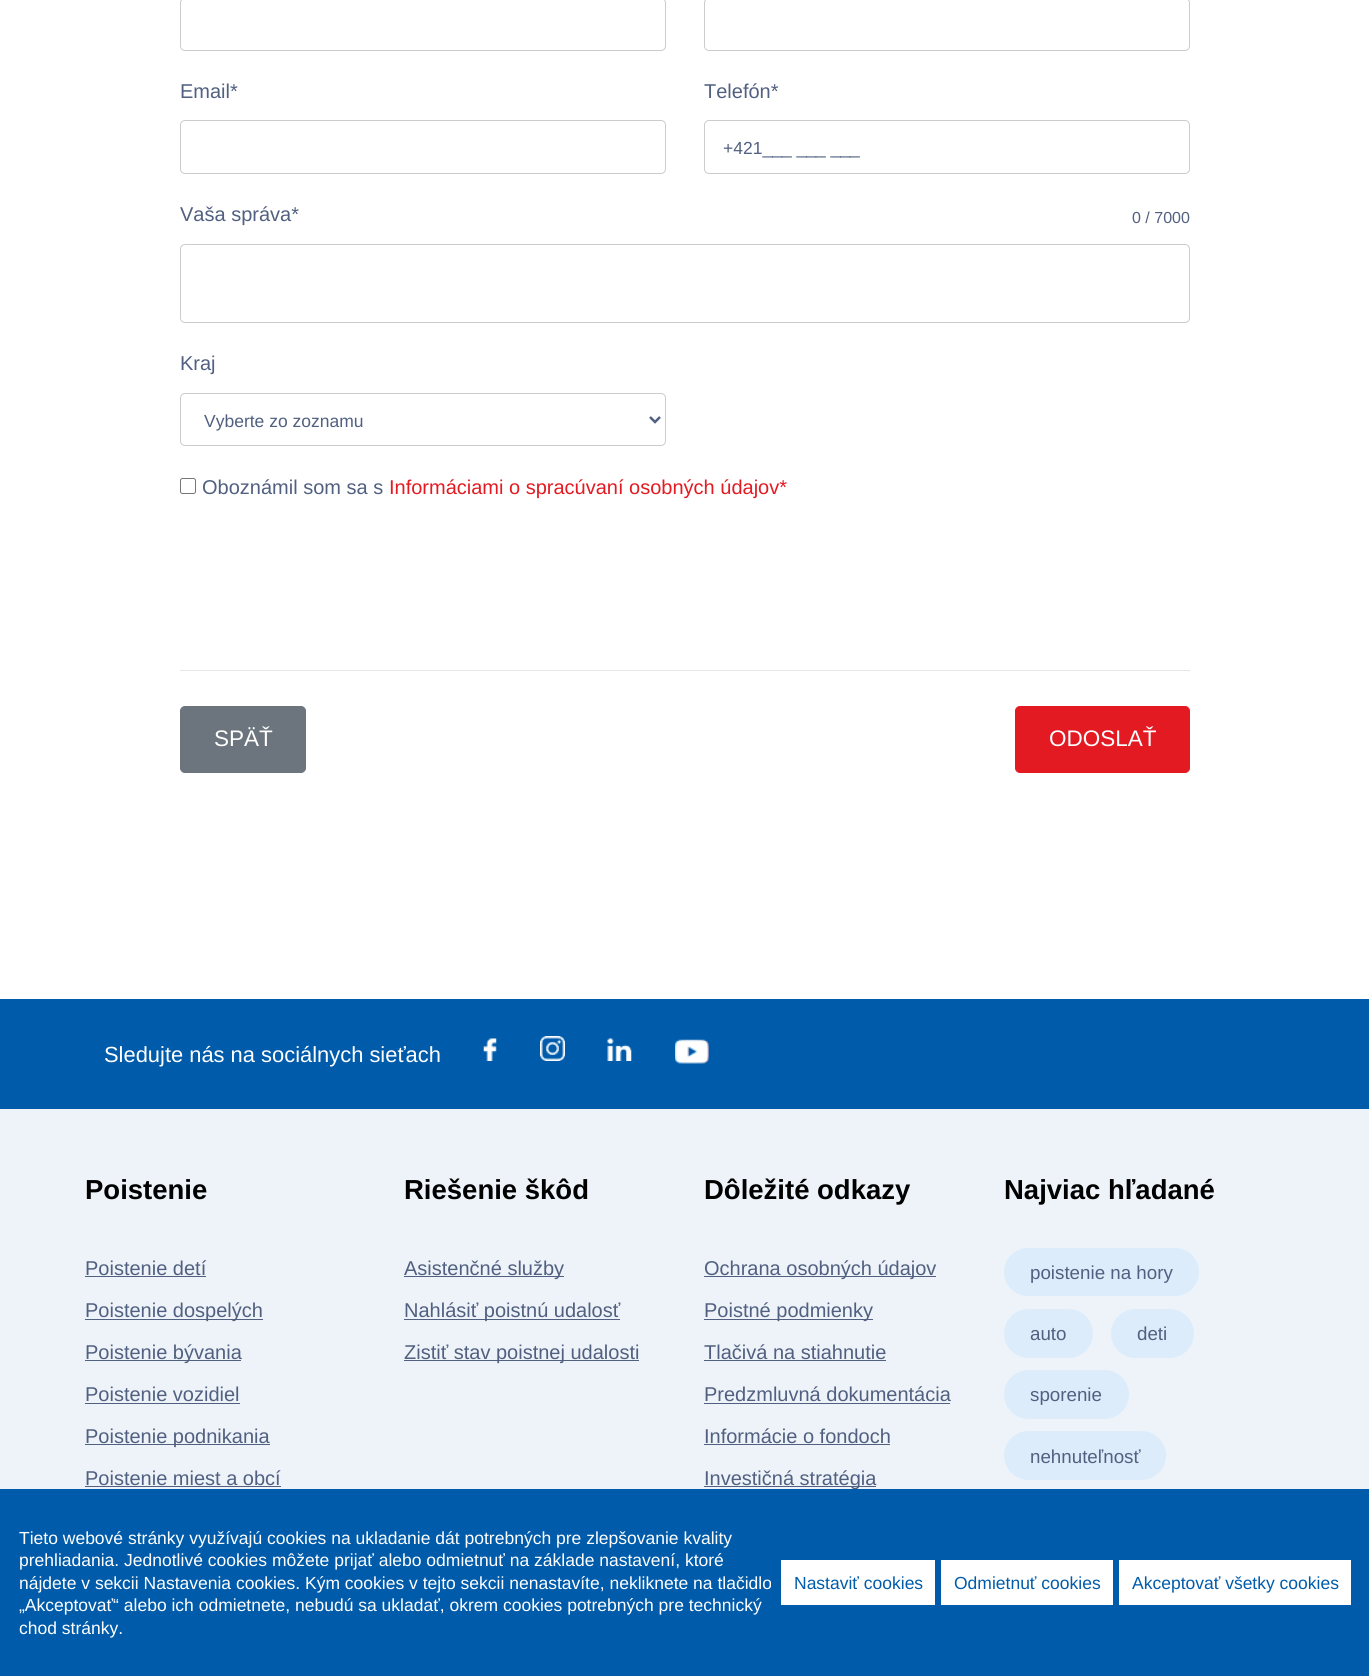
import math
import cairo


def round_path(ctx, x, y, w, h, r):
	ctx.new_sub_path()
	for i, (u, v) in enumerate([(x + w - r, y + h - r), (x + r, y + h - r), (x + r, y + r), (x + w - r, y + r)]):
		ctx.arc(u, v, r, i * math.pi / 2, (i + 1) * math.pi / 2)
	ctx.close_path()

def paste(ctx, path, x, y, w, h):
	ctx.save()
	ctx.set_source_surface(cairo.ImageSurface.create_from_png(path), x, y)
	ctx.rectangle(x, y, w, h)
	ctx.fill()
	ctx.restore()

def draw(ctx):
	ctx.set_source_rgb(1, 1, 1)
	ctx.paint()
	round_path(ctx, 180.5, -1.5, 485, 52, 4.5)
	ctx.set_source_rgb(0.8, 0.8, 0.8)
	ctx.set_line_width(1)
	ctx.stroke()
	round_path(ctx, 704.5, -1.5, 485, 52, 4.5)
	ctx.stroke()
	ctx.select_font_face('Liberation Sans')
	ctx.set_font_size(20)
	ctx.set_source_rgb(0.318, 0.376, 0.502)
	ctx.move_to(180, 98)
	ctx.show_text('Email*')
	round_path(ctx, 180.5, 120.5, 485, 53, 4.5)
	ctx.set_source_rgb(0.8, 0.8, 0.8)
	ctx.stroke()
	ctx.set_source_rgb(0.318, 0.376, 0.502)
	ctx.move_to(704, 98)
	ctx.show_text('Telefón*')
	round_path(ctx, 704.5, 120.5, 485, 53, 4.5)
	ctx.set_source_rgb(0.8, 0.8, 0.8)
	ctx.stroke()
	ctx.set_font_size(17.5)
	ctx.set_source_rgb(0.318, 0.376, 0.502)
	ctx.move_to(723, 154)
	ctx.show_text('+421___ ___ ___')
	ctx.set_font_size(20)
	ctx.move_to(180, 221)
	ctx.show_text('Vaša správa*')
	ctx.set_font_size(16)
	ctx.move_to(1132, 223)
	ctx.show_text('0 / 7000')
	round_path(ctx, 180.5, 244.5, 1009, 78, 4.5)
	ctx.set_source_rgb(0.8, 0.8, 0.8)
	ctx.stroke()
	ctx.set_font_size(20)
	ctx.set_source_rgb(0.318, 0.376, 0.502)
	ctx.move_to(180, 370)
	ctx.show_text('Kraj')
	round_path(ctx, 180.5, 393.5, 485, 52, 4.5)
	ctx.set_source_rgb(0.8, 0.8, 0.8)
	ctx.stroke()
	ctx.new_path()
	ctx.move_to(650, 417)
	ctx.line_to(655, 422)
	ctx.line_to(660, 417)
	ctx.set_source_rgb(0.318, 0.376, 0.502)
	ctx.set_line_width(2.5)
	ctx.stroke()
	ctx.set_font_size(17.5)
	ctx.move_to(204, 427)
	ctx.show_text('Vyberte zo zoznamu')
	round_path(ctx, 180.5, 478.5, 15, 15, 2)
	ctx.set_source_rgb(0.463, 0.463, 0.463)
	ctx.set_line_width(1)
	ctx.stroke()
	ctx.set_font_size(20)
	ctx.set_source_rgb(0.318, 0.376, 0.502)
	ctx.move_to(202, 494)
	ctx.show_text('Oboznámil som sa s')
	ctx.set_source_rgb(0.89, 0.102, 0.133)
	ctx.move_to(389, 494)
	ctx.show_text('Informáciami o spracúvaní osobných údajov*')
	ctx.set_source_rgb(0.902, 0.902, 0.902)
	ctx.rectangle(180, 670, 1010, 1)
	ctx.fill()
	ctx.set_source_rgb(0.424, 0.459, 0.49)
	round_path(ctx, 180.5, 706.5, 125, 66, 4.5)
	ctx.fill_preserve()
	ctx.stroke()
	ctx.set_font_size(22.5)
	ctx.set_source_rgb(1, 1, 1)
	ctx.move_to(214, 746)
	ctx.show_text('SPÄŤ')
	ctx.set_source_rgb(0.89, 0.102, 0.133)
	round_path(ctx, 1015.5, 706.5, 174, 66, 4.5)
	ctx.fill_preserve()
	ctx.stroke()
	ctx.set_source_rgb(1, 1, 1)
	ctx.move_to(1049, 746)
	ctx.show_text('ODOSLAŤ')
	ctx.set_source_rgb(0, 0.357, 0.667)
	ctx.rectangle(0, 999, 1369, 110)
	ctx.fill()
	ctx.set_font_size(21.9)
	ctx.set_source_rgb(1, 1, 1)
	ctx.move_to(104, 1062)
	ctx.show_text('Sledujte nás na sociálnych sieťach')
	paste(ctx, 'media/1.png', 483, 1038, 14, 23)
	paste(ctx, 'media/2.png', 540, 1036, 25, 25)
	paste(ctx, 'media/3.png', 607, 1038, 25, 23)
	paste(ctx, 'media/4.png', 675, 1039, 34, 25)
	ctx.set_source_rgb(0.929, 0.953, 0.976)
	ctx.rectangle(0, 1109, 1369, 380)
	ctx.fill()
	ctx.select_font_face('Liberation Sans', cairo.FONT_SLANT_NORMAL, cairo.FONT_WEIGHT_BOLD)
	ctx.set_font_size(27.5)
	ctx.set_source_rgb(0, 0, 0)
	ctx.move_to(85, 1199)
	ctx.show_text('Poistenie')
	ctx.select_font_face('Liberation Sans')
	ctx.set_font_size(20)
	ctx.set_source_rgb(0.318, 0.376, 0.502)
	ctx.move_to(85, 1275)
	ctx.show_text('Poistenie detí')
	ctx.rectangle(85, 1276, 121, 1)
	ctx.fill()
	ctx.rectangle(85, 1319, 178, 1)
	ctx.fill()
	ctx.move_to(85, 1317)
	ctx.show_text('Poistenie dospelých')
	ctx.rectangle(85, 1360, 156, 1)
	ctx.fill()
	ctx.move_to(85, 1359)
	ctx.show_text('Poistenie bývania')
	ctx.move_to(85, 1401)
	ctx.show_text('Poistenie vozidiel')
	ctx.rectangle(85, 1403, 155, 1)
	ctx.fill()
	ctx.rectangle(85, 1444, 185, 1)
	ctx.fill()
	ctx.move_to(85, 1443)
	ctx.show_text('Poistenie podnikania')
	ctx.move_to(85, 1485)
	ctx.show_text('Poistenie miest a obcí')
	ctx.rectangle(85, 1486, 196, 1)
	ctx.fill()
	ctx.select_font_face('Liberation Sans', cairo.FONT_SLANT_NORMAL, cairo.FONT_WEIGHT_BOLD)
	ctx.set_font_size(27.5)
	ctx.set_source_rgb(0, 0, 0)
	ctx.move_to(404, 1199)
	ctx.show_text('Riešenie škôd')
	ctx.set_source_rgb(0.318, 0.376, 0.502)
	ctx.rectangle(404, 1276, 160, 1)
	ctx.fill()
	ctx.select_font_face('Liberation Sans')
	ctx.set_font_size(20)
	ctx.move_to(404, 1275)
	ctx.show_text('Asistenčné služby')
	ctx.rectangle(404, 1319, 216, 1)
	ctx.fill()
	ctx.move_to(404, 1317)
	ctx.show_text('Nahlásiť poistnú udalosť')
	ctx.rectangle(404, 1360, 235, 1)
	ctx.fill()
	ctx.move_to(404, 1359)
	ctx.show_text('Zistiť stav poistnej udalosti')
	ctx.select_font_face('Liberation Sans', cairo.FONT_SLANT_NORMAL, cairo.FONT_WEIGHT_BOLD)
	ctx.set_font_size(27.5)
	ctx.set_source_rgb(0, 0, 0)
	ctx.move_to(704, 1199)
	ctx.show_text('Dôležité odkazy')
	ctx.set_source_rgb(0.318, 0.376, 0.502)
	ctx.rectangle(704, 1276, 232, 1)
	ctx.fill()
	ctx.select_font_face('Liberation Sans')
	ctx.set_font_size(20)
	ctx.move_to(704, 1275)
	ctx.show_text('Ochrana osobných údajov')
	ctx.rectangle(704, 1319, 169, 1)
	ctx.fill()
	ctx.move_to(704, 1317)
	ctx.show_text('Poistné podmienky')
	ctx.move_to(704, 1359)
	ctx.show_text('Tlačivá na stiahnutie')
	ctx.rectangle(704, 1360, 182, 1)
	ctx.fill()
	ctx.move_to(704, 1401)
	ctx.show_text('Predzmluvná dokumentácia')
	ctx.rectangle(704, 1403, 246, 1)
	ctx.fill()
	ctx.move_to(704, 1443)
	ctx.show_text('Informácie o fondoch')
	ctx.rectangle(704, 1444, 186, 1)
	ctx.fill()
	ctx.rectangle(704, 1486, 172, 1)
	ctx.fill()
	ctx.move_to(704, 1485)
	ctx.show_text('Investičná stratégia')
	ctx.select_font_face('Liberation Sans', cairo.FONT_SLANT_NORMAL, cairo.FONT_WEIGHT_BOLD)
	ctx.set_font_size(27.5)
	ctx.set_source_rgb(0, 0, 0)
	ctx.move_to(1004, 1199)
	ctx.show_text('Najviac hľadané')
	ctx.set_source_rgb(0.863, 0.922, 0.984)
	round_path(ctx, 1004, 1248, 195, 48, 24)
	ctx.fill()
	ctx.select_font_face('Liberation Sans')
	ctx.set_font_size(18.75)
	ctx.set_source_rgb(0.318, 0.376, 0.502)
	ctx.move_to(1030, 1279)
	ctx.show_text('poistenie na hory')
	ctx.set_source_rgb(0.863, 0.922, 0.984)
	round_path(ctx, 1004, 1309, 89, 49, 24.5)
	ctx.fill()
	ctx.set_source_rgb(0.318, 0.376, 0.502)
	ctx.move_to(1030, 1340)
	ctx.show_text('auto')
	ctx.set_source_rgb(0.863, 0.922, 0.984)
	round_path(ctx, 1111, 1309, 83, 49, 24.5)
	ctx.fill()
	ctx.set_source_rgb(0.318, 0.376, 0.502)
	ctx.move_to(1137, 1340)
	ctx.show_text('deti')
	ctx.set_source_rgb(0.863, 0.922, 0.984)
	round_path(ctx, 1004, 1370, 125, 49, 24.5)
	ctx.fill()
	ctx.set_source_rgb(0.318, 0.376, 0.502)
	ctx.move_to(1030, 1401)
	ctx.show_text('sporenie')
	ctx.set_source_rgb(0.863, 0.922, 0.984)
	round_path(ctx, 1004, 1431, 162, 49, 24.5)
	ctx.fill()
	ctx.set_source_rgb(0.318, 0.376, 0.502)
	ctx.move_to(1030, 1463)
	ctx.show_text('nehnuteľnosť')
	ctx.set_source_rgb(0, 0.357, 0.667)
	ctx.rectangle(0, 1489, 1369, 187)
	ctx.fill()
	ctx.set_font_size(17.5)
	ctx.set_source_rgb(1, 1, 1)
	for x, y, s in [
		(19, 1544, 'Tieto webové stránky využívajú cookies na ukladanie dát potrebných pre zlepšovanie kvality'),
		(19, 1566, 'prehliadania. Jednotlivé cookies môžete prijať alebo odmietnuť na základe nastavení, ktoré'),
		(19, 1589, 'nájdete v sekcii Nastavenia cookies. Kým cookies v tejto sekcii nenastavíte, nekliknete na tlačidlo'),
		(19, 1611, '„Akceptovať“ alebo ich odmietnete, nebudú sa ukladať, okrem cookies potrebných pre technický'),
		(19, 1634, 'chod stránky.'),
	]:
		ctx.move_to(x, y)
		ctx.show_text(s)
	ctx.rectangle(781, 1560, 154, 45)
	ctx.fill()
	ctx.set_source_rgb(0, 0.357, 0.667)
	ctx.move_to(794, 1589)
	ctx.show_text('Nastaviť cookies')
	ctx.set_source_rgb(1, 1, 1)
	ctx.rectangle(941, 1560, 172, 45)
	ctx.fill()
	ctx.set_source_rgb(0, 0.357, 0.667)
	ctx.move_to(954, 1589)
	ctx.show_text('Odmietnuť cookies')
	ctx.set_source_rgb(1, 1, 1)
	ctx.rectangle(1119, 1560, 232, 45)
	ctx.fill()
	ctx.set_source_rgb(0, 0.357, 0.667)
	ctx.move_to(1132, 1589)
	ctx.show_text('Akceptovať všetky cookies')


surface = cairo.ImageSurface(cairo.FORMAT_RGB24, 1369, 1676)
ctx = cairo.Context(surface)
options = cairo.FontOptions()
options.set_hint_metrics(cairo.HINT_METRICS_OFF)
options.set_hint_style(cairo.HINT_STYLE_NONE)
ctx.set_font_options(options)
ctx.set_miter_limit(4)
draw(ctx)
surface.write_to_png('image.png')
